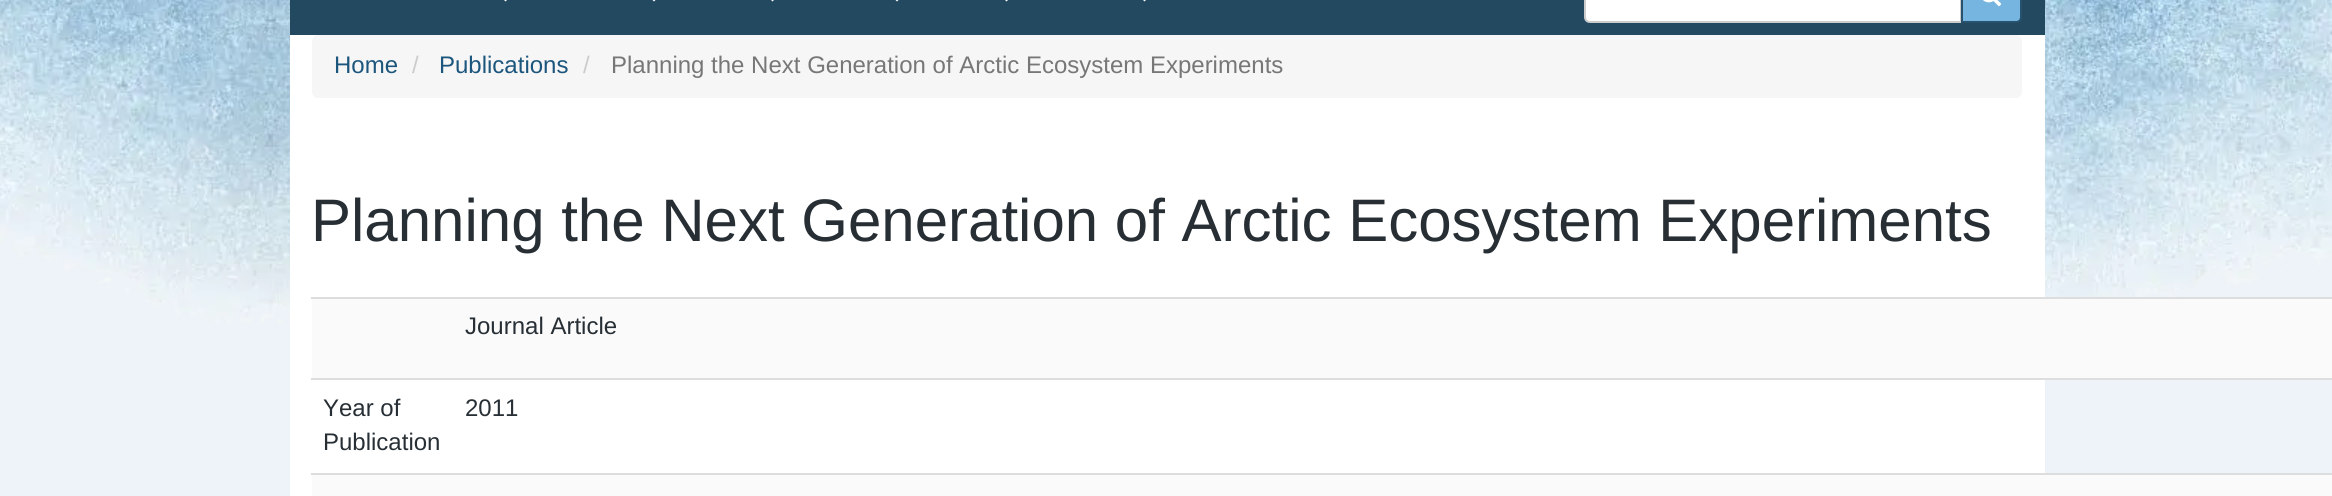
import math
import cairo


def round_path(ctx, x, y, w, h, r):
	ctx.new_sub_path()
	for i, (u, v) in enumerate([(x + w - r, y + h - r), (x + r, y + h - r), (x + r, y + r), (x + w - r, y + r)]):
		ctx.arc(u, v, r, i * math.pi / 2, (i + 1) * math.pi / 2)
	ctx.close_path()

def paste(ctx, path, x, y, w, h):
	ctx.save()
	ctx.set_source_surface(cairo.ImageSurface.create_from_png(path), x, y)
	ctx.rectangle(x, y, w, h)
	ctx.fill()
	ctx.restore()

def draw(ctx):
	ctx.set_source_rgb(0.929, 0.953, 0.969)
	ctx.paint()
	paste(ctx, 'media/1.png', 0, 0, 2332, 324)
	ctx.set_source_rgb(0.137, 0.286, 0.38)
	ctx.rectangle(290, 0, 1755, 35)
	ctx.fill()
	ctx.set_source_rgb(1, 1, 1)
	ctx.new_path()
	ctx.move_to(499.5, -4.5)
	ctx.line_to(511.5, -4.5)
	ctx.line_to(505.5, 1.5)
	ctx.close_path()
	ctx.fill()
	ctx.new_path()
	ctx.move_to(648, -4.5)
	ctx.line_to(660, -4.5)
	ctx.line_to(654, 1.5)
	ctx.close_path()
	ctx.fill()
	ctx.new_path()
	ctx.move_to(766.5, -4.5)
	ctx.line_to(778.5, -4.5)
	ctx.line_to(772.5, 1.5)
	ctx.close_path()
	ctx.fill()
	ctx.new_path()
	ctx.move_to(891, -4.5)
	ctx.line_to(903, -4.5)
	ctx.line_to(897, 1.5)
	ctx.close_path()
	ctx.fill()
	ctx.new_path()
	ctx.move_to(1000.5, -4.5)
	ctx.line_to(1012.5, -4.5)
	ctx.line_to(1006.5, 1.5)
	ctx.close_path()
	ctx.fill()
	ctx.new_path()
	ctx.move_to(1138.5, -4.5)
	ctx.line_to(1150.5, -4.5)
	ctx.line_to(1144.5, 1.5)
	ctx.close_path()
	ctx.fill()
	ctx.new_path()
	ctx.move_to(1590, -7)
	ctx.line_to(1961, -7)
	ctx.line_to(1961, 22)
	ctx.line_to(1590, 22)
	ctx.curve_to(1587, 22, 1585, 20, 1585, 17)
	ctx.line_to(1585, -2)
	ctx.curve_to(1585, -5, 1587, -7, 1590, -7)
	ctx.close_path()
	ctx.fill_preserve()
	ctx.set_source_rgb(0.8, 0.8, 0.8)
	ctx.stroke()
	ctx.set_source_rgb(0.463, 0.71, 0.878)
	ctx.new_path()
	ctx.move_to(1962, -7)
	ctx.line_to(2016, -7)
	ctx.curve_to(2019, -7, 2021, -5, 2021, -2)
	ctx.line_to(2021, 17)
	ctx.curve_to(2021, 20, 2019, 22, 2016, 22)
	ctx.line_to(1962, 22)
	ctx.close_path()
	ctx.fill_preserve()
	ctx.set_source_rgb(0.153, 0.318, 0.427)
	ctx.stroke()
	paste(ctx, 'media/2.png', 1983, 0, 19, 7)
	ctx.set_source_rgb(1, 1, 1)
	ctx.rectangle(290, 35, 1755, 461)
	ctx.fill()
	ctx.set_source_rgb(0.961, 0.961, 0.961)
	round_path(ctx, 312, 35, 1710, 63, 6)
	ctx.fill()
	ctx.select_font_face('Liberation Sans')
	ctx.set_font_size(24)
	ctx.set_source_rgb(0.11, 0.337, 0.49)
	ctx.move_to(334, 73)
	ctx.show_text('Home')
	ctx.set_source_rgb(0.8, 0.8, 0.8)
	ctx.move_to(412, 73)
	ctx.show_text('/')
	ctx.set_source_rgb(0.11, 0.337, 0.49)
	ctx.move_to(439, 73)
	ctx.show_text('Publications')
	ctx.set_source_rgb(0.8, 0.8, 0.8)
	ctx.move_to(583, 73)
	ctx.show_text('/')
	ctx.set_source_rgb(0.467, 0.467, 0.467)
	ctx.move_to(611, 73)
	ctx.show_text('Planning the Next Generation of Arctic Ecosystem Experiments')
	ctx.set_font_size(60)
	ctx.set_source_rgb(0.153, 0.184, 0.208)
	ctx.move_to(311, 241)
	ctx.show_text('Planning the Next Generation of Arctic Ecosystem Experiments')
	ctx.set_source_rgb(0.98, 0.98, 0.98)
	ctx.rectangle(312, 299, 2020, 79)
	ctx.fill()
	ctx.set_source_rgb(0.867, 0.867, 0.867)
	ctx.rectangle(311, 297, 2021, 2)
	ctx.fill()
	ctx.set_font_size(24)
	ctx.set_source_rgb(0.153, 0.184, 0.208)
	for x, y, s in [
		(465, 334, 'Journal Article'),
		(323, 416, 'Year of'),
		(323, 450, 'Publication'),
	]:
		ctx.move_to(x, y)
		ctx.show_text(s)
	ctx.set_source_rgb(0.867, 0.867, 0.867)
	ctx.rectangle(311, 378, 2021, 2)
	ctx.fill()
	ctx.set_source_rgb(0.153, 0.184, 0.208)
	ctx.move_to(465, 416)
	ctx.show_text('2011')
	ctx.set_source_rgb(0.98, 0.98, 0.98)
	ctx.rectangle(312, 475, 2020, 21)
	ctx.fill()
	ctx.set_source_rgb(0.867, 0.867, 0.867)
	ctx.rectangle(311, 473, 2021, 2)
	ctx.fill()


surface = cairo.ImageSurface(cairo.FORMAT_RGB24, 2332, 496)
ctx = cairo.Context(surface)
options = cairo.FontOptions()
options.set_hint_metrics(cairo.HINT_METRICS_OFF)
options.set_hint_style(cairo.HINT_STYLE_NONE)
ctx.set_font_options(options)
ctx.set_miter_limit(4)
draw(ctx)
surface.write_to_png('image.png')
